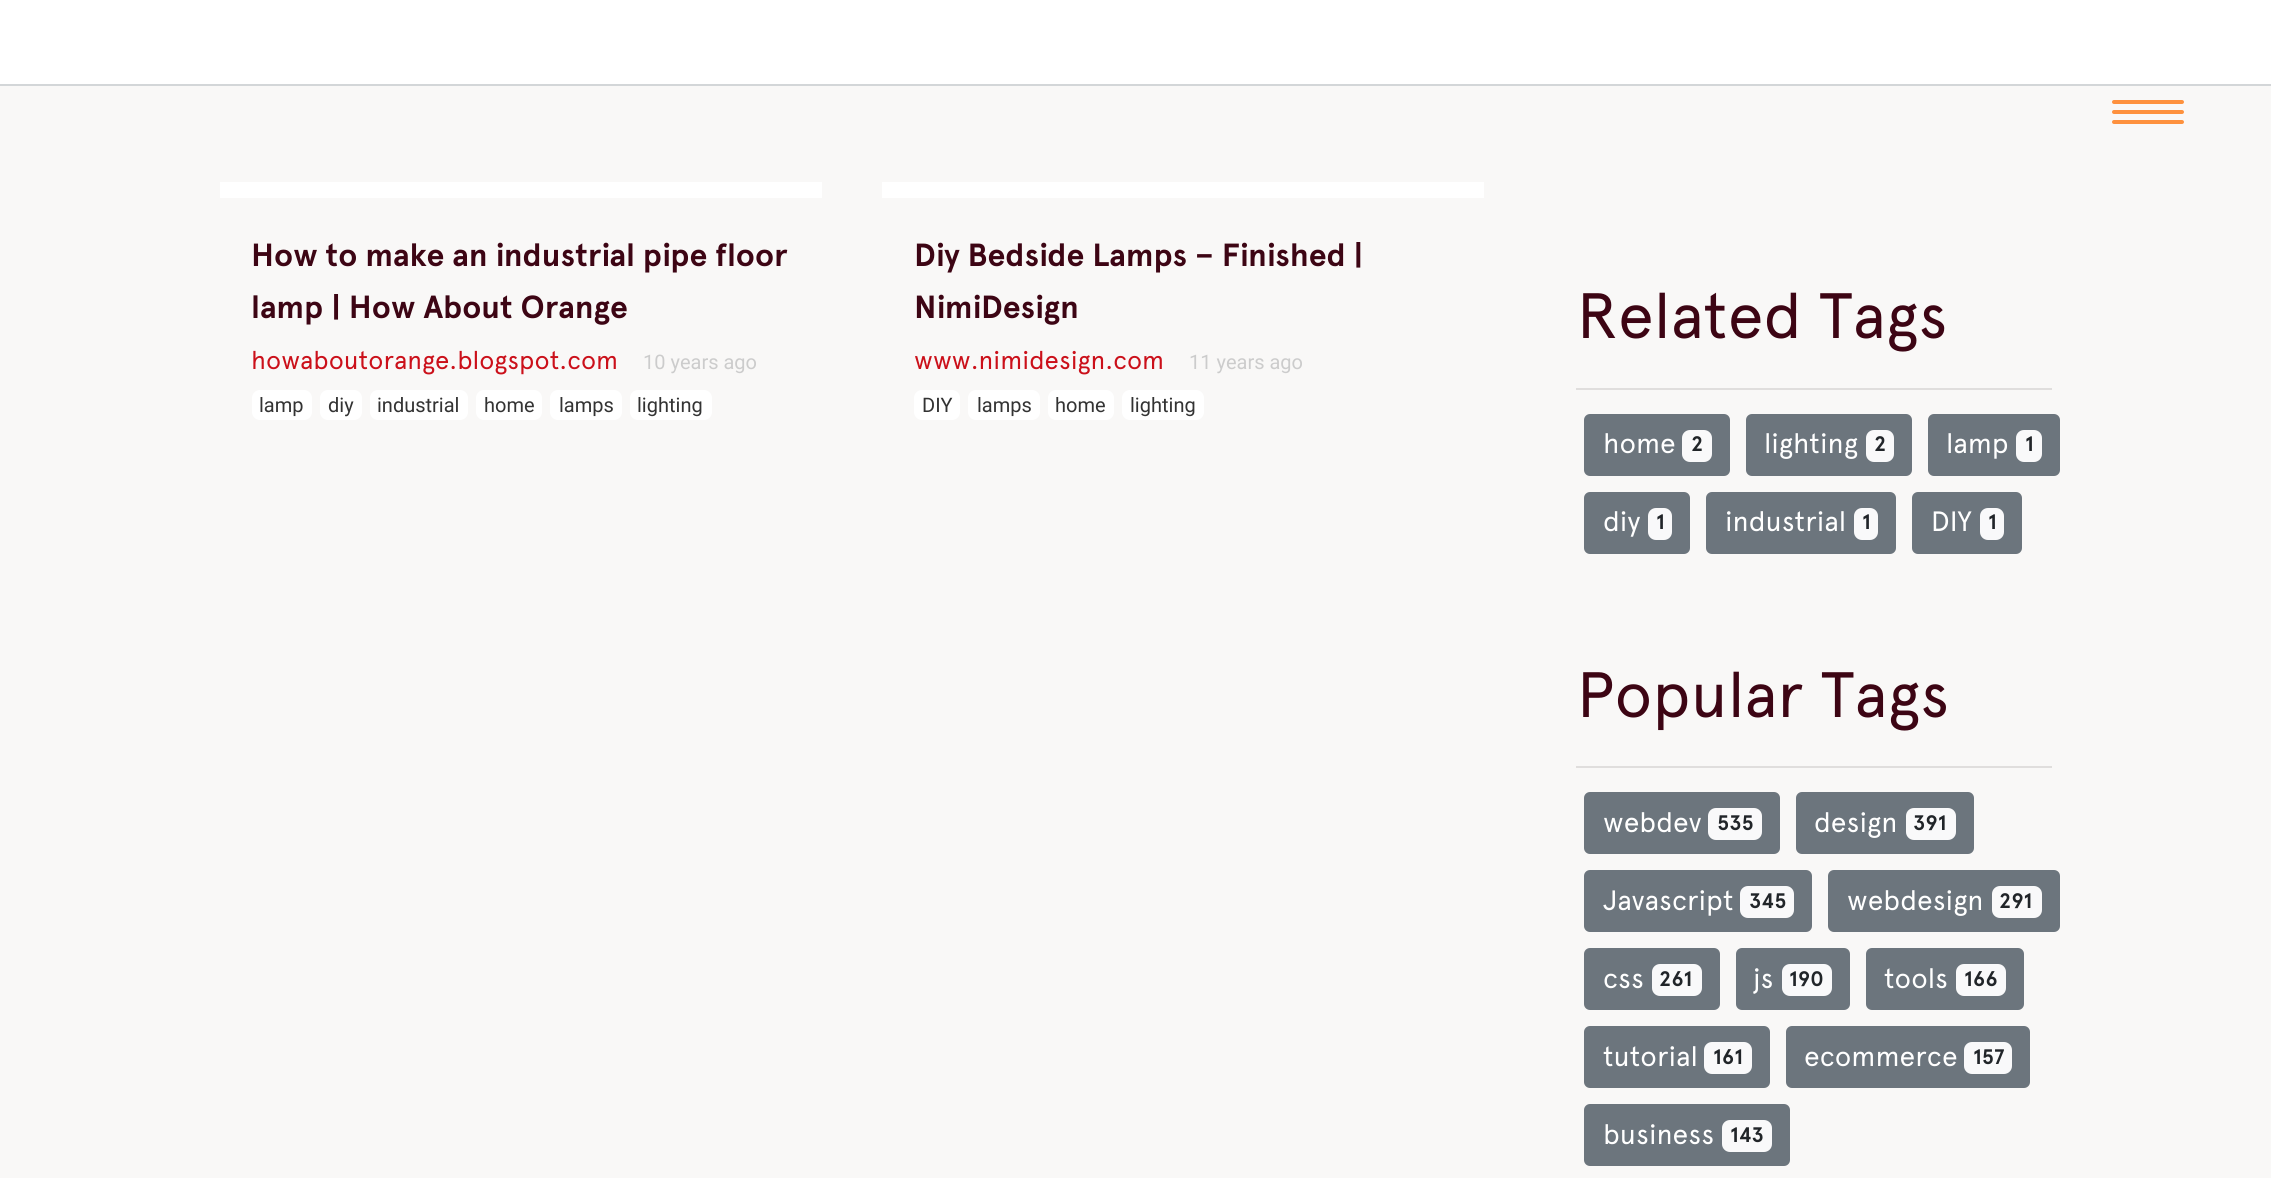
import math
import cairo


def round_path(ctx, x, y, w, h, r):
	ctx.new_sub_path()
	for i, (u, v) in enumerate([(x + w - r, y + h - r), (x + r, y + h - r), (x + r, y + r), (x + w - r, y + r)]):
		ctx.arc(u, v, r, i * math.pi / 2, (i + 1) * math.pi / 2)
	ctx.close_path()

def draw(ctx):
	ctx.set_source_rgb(1, 1, 1)
	ctx.paint()
	ctx.set_source_rgb(0.976, 0.969, 0.965)
	ctx.rectangle(0, 86, 2271, 1092)
	ctx.fill()
	ctx.set_source_rgb(0.996, 0.569, 0.243)
	round_path(ctx, 2112, 100, 72, 4, 2)
	ctx.fill()
	round_path(ctx, 2112, 110, 72, 4, 2)
	ctx.fill()
	round_path(ctx, 2112, 120, 72, 4, 2)
	ctx.fill()
	ctx.set_source_rgb(0.827, 0.839, 0.847)
	ctx.rectangle(0, 84, 2271, 2)
	ctx.fill()
	ctx.set_source_rgb(1, 1, 1)
	ctx.rectangle(220, 182, 602, 16)
	ctx.fill()
	ctx.select_font_face('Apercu', cairo.FONT_SLANT_NORMAL, cairo.FONT_WEIGHT_BOLD)
	ctx.set_font_size(32)
	ctx.set_source_rgb(0.239, 0.02, 0.082)
	ctx.move_to(251, 266)
	ctx.show_text('How to make an industrial pipe floor')
	ctx.move_to(251, 318)
	ctx.show_text('lamp | How About Orange')
	ctx.select_font_face('Apercu')
	ctx.set_font_size(25.6)
	ctx.set_source_rgb(0.796, 0.063, 0.102)
	ctx.move_to(251, 369)
	ctx.show_text('howaboutorange.blogspot.com')
	ctx.select_font_face('Roboto')
	ctx.set_font_size(20)
	ctx.set_source_rgb(0.8, 0.8, 0.8)
	ctx.move_to(643, 369)
	ctx.show_text('10 years ago')
	ctx.set_source_rgb(1, 1, 1)
	round_path(ctx, 252, 390, 60, 30, 8)
	ctx.fill()
	ctx.set_source_rgb(0.2, 0.2, 0.2)
	ctx.move_to(259, 412)
	ctx.show_text('lamp')
	ctx.set_source_rgb(1, 1, 1)
	round_path(ctx, 320, 390, 42, 30, 8)
	ctx.fill()
	ctx.set_source_rgb(0.2, 0.2, 0.2)
	ctx.move_to(328, 412)
	ctx.show_text('diy')
	ctx.set_source_rgb(1, 1, 1)
	round_path(ctx, 370, 390, 98, 30, 8)
	ctx.fill()
	ctx.set_source_rgb(0.2, 0.2, 0.2)
	ctx.move_to(377, 412)
	ctx.show_text('industrial')
	ctx.set_source_rgb(1, 1, 1)
	round_path(ctx, 476, 390, 66, 30, 8)
	ctx.fill()
	ctx.set_source_rgb(0.2, 0.2, 0.2)
	ctx.move_to(484, 412)
	ctx.show_text('home')
	ctx.set_source_rgb(1, 1, 1)
	round_path(ctx, 550, 390, 72, 30, 8)
	ctx.fill()
	ctx.set_source_rgb(0.2, 0.2, 0.2)
	ctx.move_to(559, 412)
	ctx.show_text('lamps')
	ctx.set_source_rgb(1, 1, 1)
	round_path(ctx, 630, 390, 82, 30, 8)
	ctx.fill()
	ctx.set_source_rgb(0.2, 0.2, 0.2)
	ctx.move_to(637, 412)
	ctx.show_text('lighting')
	ctx.set_source_rgb(1, 1, 1)
	ctx.rectangle(882, 182, 602, 16)
	ctx.fill()
	ctx.select_font_face('Apercu', cairo.FONT_SLANT_NORMAL, cairo.FONT_WEIGHT_BOLD)
	ctx.set_font_size(32)
	ctx.set_source_rgb(0.239, 0.02, 0.082)
	ctx.move_to(914, 266)
	ctx.show_text('Diy Bedside Lamps – Finished |')
	ctx.move_to(914, 318)
	ctx.show_text('NimiDesign')
	ctx.select_font_face('Apercu')
	ctx.set_font_size(25.6)
	ctx.set_source_rgb(0.796, 0.063, 0.102)
	ctx.move_to(914, 369)
	ctx.show_text('www.nimidesign.com')
	ctx.select_font_face('Roboto')
	ctx.set_font_size(20)
	ctx.set_source_rgb(0.8, 0.8, 0.8)
	ctx.move_to(1189, 369)
	ctx.show_text('11 years ago')
	ctx.set_source_rgb(1, 1, 1)
	round_path(ctx, 914, 390, 46, 30, 8)
	ctx.fill()
	ctx.set_source_rgb(0.2, 0.2, 0.2)
	ctx.move_to(922, 412)
	ctx.show_text('DIY')
	ctx.set_source_rgb(1, 1, 1)
	round_path(ctx, 968, 390, 72, 30, 8)
	ctx.fill()
	ctx.set_source_rgb(0.2, 0.2, 0.2)
	ctx.move_to(977, 412)
	ctx.show_text('lamps')
	ctx.set_source_rgb(1, 1, 1)
	round_path(ctx, 1048, 390, 66, 30, 8)
	ctx.fill()
	ctx.set_source_rgb(0.2, 0.2, 0.2)
	ctx.move_to(1055, 412)
	ctx.show_text('home')
	ctx.set_source_rgb(1, 1, 1)
	round_path(ctx, 1122, 390, 82, 30, 8)
	ctx.fill()
	ctx.set_source_rgb(0.2, 0.2, 0.2)
	ctx.move_to(1130, 412)
	ctx.show_text('lighting')
	ctx.select_font_face('Apercu')
	ctx.set_font_size(64)
	ctx.set_source_rgb(0.239, 0.02, 0.082)
	ctx.move_to(1577, 338)
	ctx.show_text('Related Tags')
	ctx.set_source_rgb(0.878, 0.871, 0.867)
	ctx.rectangle(1576, 388, 476, 2)
	ctx.fill()
	ctx.set_source_rgb(0.424, 0.459, 0.49)
	round_path(ctx, 1585, 415, 144, 60, 5)
	ctx.fill_preserve()
	ctx.stroke()
	ctx.set_font_size(28)
	ctx.set_source_rgb(1, 1, 1)
	ctx.move_to(1603, 453)
	ctx.show_text('home')
	ctx.set_source_rgb(0.973, 0.976, 0.98)
	round_path(ctx, 1682, 430, 30, 32, 8)
	ctx.fill()
	ctx.select_font_face('Apercu', cairo.FONT_SLANT_NORMAL, cairo.FONT_WEIGHT_BOLD)
	ctx.set_font_size(21)
	ctx.set_source_rgb(0.129, 0.145, 0.161)
	ctx.move_to(1691, 451)
	ctx.show_text('2')
	ctx.set_source_rgb(0.424, 0.459, 0.49)
	round_path(ctx, 1747, 415, 164, 60, 5)
	ctx.fill_preserve()
	ctx.stroke()
	ctx.select_font_face('Apercu')
	ctx.set_font_size(28)
	ctx.set_source_rgb(1, 1, 1)
	ctx.move_to(1764, 453)
	ctx.show_text('lighting')
	ctx.set_source_rgb(0.973, 0.976, 0.98)
	round_path(ctx, 1866, 430, 28, 32, 8)
	ctx.fill()
	ctx.select_font_face('Apercu', cairo.FONT_SLANT_NORMAL, cairo.FONT_WEIGHT_BOLD)
	ctx.set_font_size(21)
	ctx.set_source_rgb(0.129, 0.145, 0.161)
	ctx.move_to(1874, 451)
	ctx.show_text('2')
	ctx.set_source_rgb(0.424, 0.459, 0.49)
	round_path(ctx, 1929, 415, 130, 60, 5)
	ctx.fill_preserve()
	ctx.stroke()
	ctx.select_font_face('Apercu')
	ctx.set_font_size(28)
	ctx.set_source_rgb(1, 1, 1)
	ctx.move_to(1946, 453)
	ctx.show_text('lamp')
	ctx.set_source_rgb(0.973, 0.976, 0.98)
	round_path(ctx, 2016, 430, 26, 32, 8)
	ctx.fill()
	ctx.select_font_face('Apercu', cairo.FONT_SLANT_NORMAL, cairo.FONT_WEIGHT_BOLD)
	ctx.set_font_size(21)
	ctx.set_source_rgb(0.129, 0.145, 0.161)
	ctx.move_to(2025, 451)
	ctx.show_text('1')
	ctx.set_source_rgb(0.424, 0.459, 0.49)
	round_path(ctx, 1585, 493, 104, 60, 5)
	ctx.fill_preserve()
	ctx.stroke()
	ctx.select_font_face('Apercu')
	ctx.set_font_size(28)
	ctx.set_source_rgb(1, 1, 1)
	ctx.move_to(1603, 531)
	ctx.show_text('diy')
	ctx.set_source_rgb(0.973, 0.976, 0.98)
	round_path(ctx, 1648, 508, 24, 32, 8)
	ctx.fill()
	ctx.select_font_face('Apercu', cairo.FONT_SLANT_NORMAL, cairo.FONT_WEIGHT_BOLD)
	ctx.set_font_size(21)
	ctx.set_source_rgb(0.129, 0.145, 0.161)
	ctx.move_to(1656, 529)
	ctx.show_text('1')
	ctx.set_source_rgb(0.424, 0.459, 0.49)
	round_path(ctx, 1707, 493, 188, 60, 5)
	ctx.fill_preserve()
	ctx.stroke()
	ctx.select_font_face('Apercu')
	ctx.set_font_size(28)
	ctx.set_source_rgb(1, 1, 1)
	ctx.move_to(1725, 531)
	ctx.show_text('industrial')
	ctx.set_source_rgb(0.973, 0.976, 0.98)
	round_path(ctx, 1854, 508, 24, 32, 8)
	ctx.fill()
	ctx.select_font_face('Apercu', cairo.FONT_SLANT_NORMAL, cairo.FONT_WEIGHT_BOLD)
	ctx.set_font_size(21)
	ctx.set_source_rgb(0.129, 0.145, 0.161)
	ctx.move_to(1862, 529)
	ctx.show_text('1')
	ctx.set_source_rgb(0.424, 0.459, 0.49)
	round_path(ctx, 1913, 493, 108, 60, 5)
	ctx.fill_preserve()
	ctx.stroke()
	ctx.select_font_face('Apercu')
	ctx.set_font_size(28)
	ctx.set_source_rgb(1, 1, 1)
	ctx.move_to(1931, 531)
	ctx.show_text('DIY')
	ctx.set_source_rgb(0.973, 0.976, 0.98)
	round_path(ctx, 1980, 508, 24, 32, 8)
	ctx.fill()
	ctx.select_font_face('Apercu', cairo.FONT_SLANT_NORMAL, cairo.FONT_WEIGHT_BOLD)
	ctx.set_font_size(21)
	ctx.set_source_rgb(0.129, 0.145, 0.161)
	ctx.move_to(1988, 529)
	ctx.show_text('1')
	ctx.select_font_face('Apercu')
	ctx.set_font_size(64)
	ctx.set_source_rgb(0.239, 0.02, 0.082)
	ctx.move_to(1577, 717)
	ctx.show_text('Popular Tags')
	ctx.set_source_rgb(0.878, 0.871, 0.867)
	ctx.rectangle(1576, 766, 476, 2)
	ctx.fill()
	ctx.set_source_rgb(0.424, 0.459, 0.49)
	round_path(ctx, 1585, 793, 194, 60, 5)
	ctx.fill_preserve()
	ctx.stroke()
	ctx.set_font_size(28)
	ctx.set_source_rgb(1, 1, 1)
	ctx.move_to(1603, 832)
	ctx.show_text('webdev')
	ctx.set_source_rgb(0.973, 0.976, 0.98)
	round_path(ctx, 1708, 808, 54, 32, 8)
	ctx.fill()
	ctx.select_font_face('Apercu', cairo.FONT_SLANT_NORMAL, cairo.FONT_WEIGHT_BOLD)
	ctx.set_font_size(21)
	ctx.set_source_rgb(0.129, 0.145, 0.161)
	ctx.move_to(1717, 830)
	ctx.show_text('535')
	ctx.set_source_rgb(0.424, 0.459, 0.49)
	round_path(ctx, 1797, 793, 176, 60, 5)
	ctx.fill_preserve()
	ctx.stroke()
	ctx.select_font_face('Apercu')
	ctx.set_font_size(28)
	ctx.set_source_rgb(1, 1, 1)
	ctx.move_to(1814, 832)
	ctx.show_text('design')
	ctx.set_source_rgb(0.973, 0.976, 0.98)
	round_path(ctx, 1906, 808, 50, 32, 8)
	ctx.fill()
	ctx.select_font_face('Apercu', cairo.FONT_SLANT_NORMAL, cairo.FONT_WEIGHT_BOLD)
	ctx.set_font_size(21)
	ctx.set_source_rgb(0.129, 0.145, 0.161)
	ctx.move_to(1913, 830)
	ctx.show_text('391')
	ctx.set_source_rgb(0.424, 0.459, 0.49)
	round_path(ctx, 1585, 871, 226, 60, 5)
	ctx.fill_preserve()
	ctx.stroke()
	ctx.select_font_face('Apercu')
	ctx.set_font_size(28)
	ctx.set_source_rgb(1, 1, 1)
	ctx.move_to(1603, 910)
	ctx.show_text('Javascript')
	ctx.set_source_rgb(0.973, 0.976, 0.98)
	round_path(ctx, 1740, 886, 54, 32, 8)
	ctx.fill()
	ctx.select_font_face('Apercu', cairo.FONT_SLANT_NORMAL, cairo.FONT_WEIGHT_BOLD)
	ctx.set_font_size(21)
	ctx.set_source_rgb(0.129, 0.145, 0.161)
	ctx.move_to(1749, 908)
	ctx.show_text('345')
	ctx.set_source_rgb(0.424, 0.459, 0.49)
	round_path(ctx, 1829, 871, 230, 60, 5)
	ctx.fill_preserve()
	ctx.stroke()
	ctx.select_font_face('Apercu')
	ctx.set_font_size(28)
	ctx.set_source_rgb(1, 1, 1)
	ctx.move_to(1847, 910)
	ctx.show_text('webdesign')
	ctx.set_source_rgb(0.973, 0.976, 0.98)
	round_path(ctx, 1992, 886, 50, 32, 8)
	ctx.fill()
	ctx.select_font_face('Apercu', cairo.FONT_SLANT_NORMAL, cairo.FONT_WEIGHT_BOLD)
	ctx.set_font_size(21)
	ctx.set_source_rgb(0.129, 0.145, 0.161)
	ctx.move_to(1999, 908)
	ctx.show_text('291')
	ctx.set_source_rgb(0.424, 0.459, 0.49)
	round_path(ctx, 1585, 949, 134, 60, 5)
	ctx.fill_preserve()
	ctx.stroke()
	ctx.select_font_face('Apercu')
	ctx.set_font_size(28)
	ctx.set_source_rgb(1, 1, 1)
	ctx.move_to(1603, 988)
	ctx.show_text('css')
	ctx.set_source_rgb(0.973, 0.976, 0.98)
	round_path(ctx, 1652, 964, 50, 32, 8)
	ctx.fill()
	ctx.select_font_face('Apercu', cairo.FONT_SLANT_NORMAL, cairo.FONT_WEIGHT_BOLD)
	ctx.set_font_size(21)
	ctx.set_source_rgb(0.129, 0.145, 0.161)
	ctx.move_to(1659, 986)
	ctx.show_text('261')
	ctx.set_source_rgb(0.424, 0.459, 0.49)
	round_path(ctx, 1737, 949, 112, 60, 5)
	ctx.fill_preserve()
	ctx.stroke()
	ctx.select_font_face('Apercu')
	ctx.set_font_size(28)
	ctx.set_source_rgb(1, 1, 1)
	ctx.move_to(1753, 988)
	ctx.show_text('js')
	ctx.set_source_rgb(0.973, 0.976, 0.98)
	round_path(ctx, 1782, 964, 50, 32, 8)
	ctx.fill()
	ctx.select_font_face('Apercu', cairo.FONT_SLANT_NORMAL, cairo.FONT_WEIGHT_BOLD)
	ctx.set_font_size(21)
	ctx.set_source_rgb(0.129, 0.145, 0.161)
	ctx.move_to(1789, 986)
	ctx.show_text('190')
	ctx.set_source_rgb(0.424, 0.459, 0.49)
	round_path(ctx, 1867, 949, 156, 60, 5)
	ctx.fill_preserve()
	ctx.stroke()
	ctx.select_font_face('Apercu')
	ctx.set_font_size(28)
	ctx.set_source_rgb(1, 1, 1)
	ctx.move_to(1884, 988)
	ctx.show_text('tools')
	ctx.set_source_rgb(0.973, 0.976, 0.98)
	round_path(ctx, 1956, 964, 50, 32, 8)
	ctx.fill()
	ctx.select_font_face('Apercu', cairo.FONT_SLANT_NORMAL, cairo.FONT_WEIGHT_BOLD)
	ctx.set_font_size(21)
	ctx.set_source_rgb(0.129, 0.145, 0.161)
	ctx.move_to(1964, 986)
	ctx.show_text('166')
	ctx.set_source_rgb(0.424, 0.459, 0.49)
	round_path(ctx, 1585, 1027, 184, 60, 5)
	ctx.fill_preserve()
	ctx.stroke()
	ctx.select_font_face('Apercu')
	ctx.set_font_size(28)
	ctx.set_source_rgb(1, 1, 1)
	ctx.move_to(1603, 1066)
	ctx.show_text('tutorial')
	ctx.set_source_rgb(0.973, 0.976, 0.98)
	round_path(ctx, 1704, 1042, 48, 32, 8)
	ctx.fill()
	ctx.select_font_face('Apercu', cairo.FONT_SLANT_NORMAL, cairo.FONT_WEIGHT_BOLD)
	ctx.set_font_size(21)
	ctx.set_source_rgb(0.129, 0.145, 0.161)
	ctx.move_to(1713, 1064)
	ctx.show_text('161')
	ctx.set_source_rgb(0.424, 0.459, 0.49)
	round_path(ctx, 1787, 1027, 242, 60, 5)
	ctx.fill_preserve()
	ctx.stroke()
	ctx.select_font_face('Apercu')
	ctx.set_font_size(28)
	ctx.set_source_rgb(1, 1, 1)
	ctx.move_to(1804, 1066)
	ctx.show_text('ecommerce')
	ctx.set_source_rgb(0.973, 0.976, 0.98)
	round_path(ctx, 1964, 1042, 48, 32, 8)
	ctx.fill()
	ctx.select_font_face('Apercu', cairo.FONT_SLANT_NORMAL, cairo.FONT_WEIGHT_BOLD)
	ctx.set_font_size(21)
	ctx.set_source_rgb(0.129, 0.145, 0.161)
	ctx.move_to(1973, 1064)
	ctx.show_text('157')
	ctx.set_source_rgb(0.424, 0.459, 0.49)
	round_path(ctx, 1585, 1105, 204, 60, 5)
	ctx.fill_preserve()
	ctx.stroke()
	ctx.select_font_face('Apercu')
	ctx.set_font_size(28)
	ctx.set_source_rgb(1, 1, 1)
	ctx.move_to(1603, 1144)
	ctx.show_text('business')
	ctx.set_source_rgb(0.973, 0.976, 0.98)
	round_path(ctx, 1722, 1120, 50, 32, 8)
	ctx.fill()
	ctx.select_font_face('Apercu', cairo.FONT_SLANT_NORMAL, cairo.FONT_WEIGHT_BOLD)
	ctx.set_font_size(21)
	ctx.set_source_rgb(0.129, 0.145, 0.161)
	ctx.move_to(1730, 1142)
	ctx.show_text('143')


surface = cairo.ImageSurface(cairo.FORMAT_RGB24, 2271, 1178)
ctx = cairo.Context(surface)
options = cairo.FontOptions()
options.set_hint_metrics(cairo.HINT_METRICS_OFF)
options.set_hint_style(cairo.HINT_STYLE_NONE)
ctx.set_font_options(options)
ctx.set_miter_limit(4)
draw(ctx)
surface.write_to_png('image.png')
